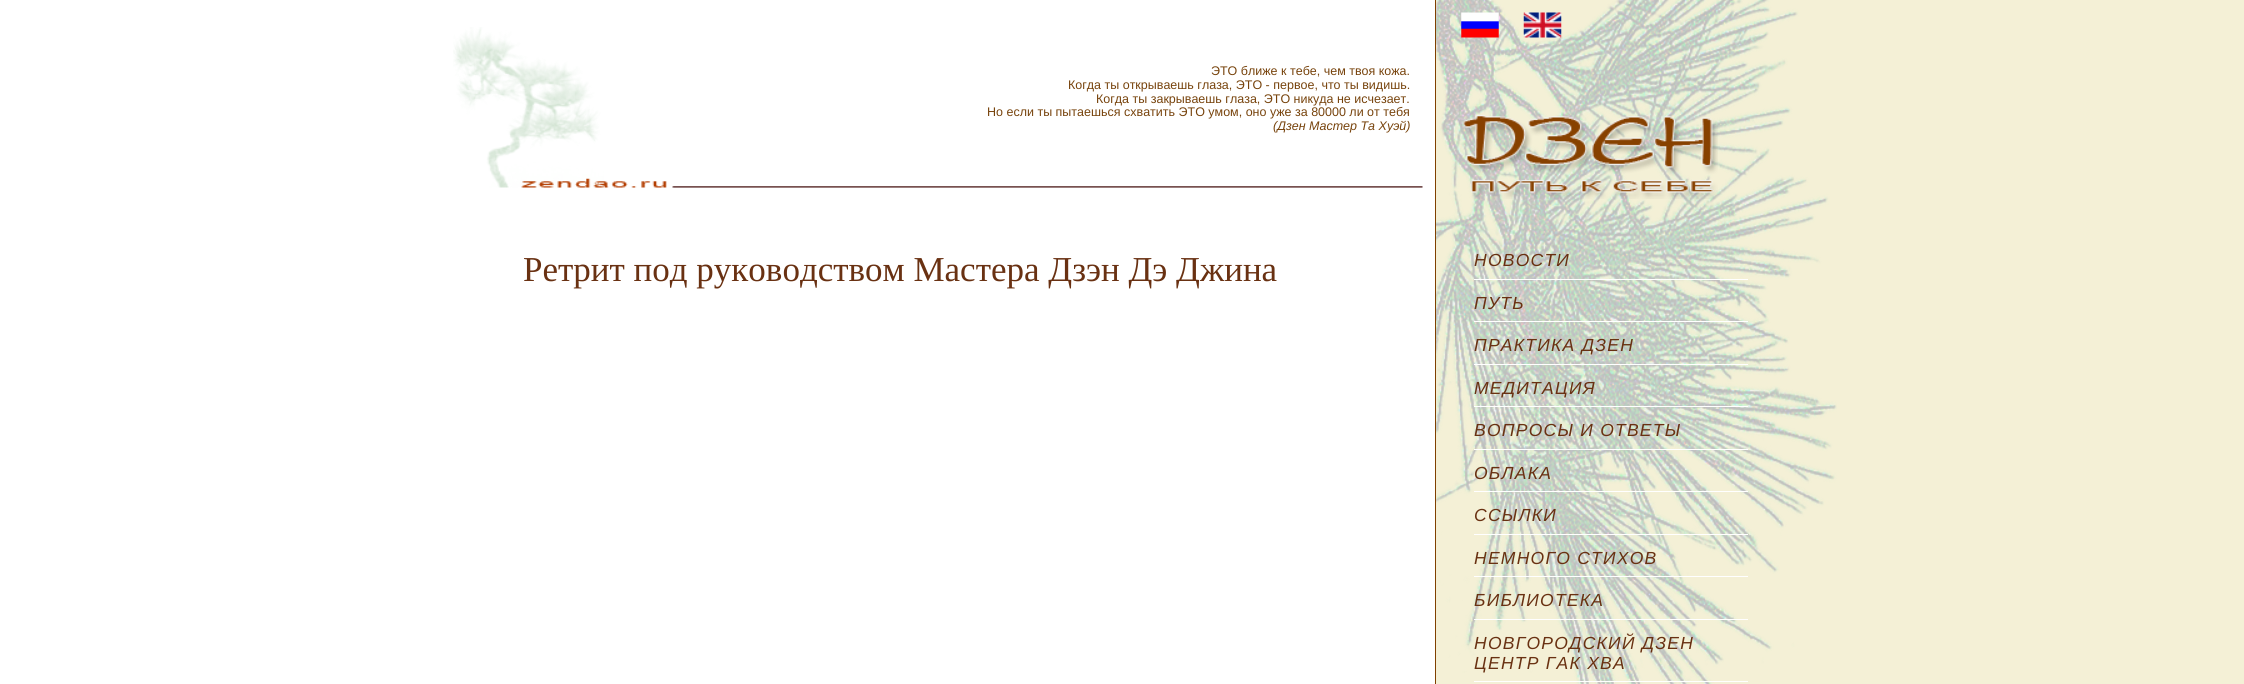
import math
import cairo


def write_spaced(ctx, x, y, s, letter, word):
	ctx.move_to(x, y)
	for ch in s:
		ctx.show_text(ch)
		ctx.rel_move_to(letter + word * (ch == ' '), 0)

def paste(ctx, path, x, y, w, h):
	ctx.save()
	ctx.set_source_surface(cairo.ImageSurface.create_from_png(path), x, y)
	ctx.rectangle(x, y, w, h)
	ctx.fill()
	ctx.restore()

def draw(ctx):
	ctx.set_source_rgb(1, 1, 1)
	ctx.paint()
	ctx.set_source_rgb(0.502, 0.251, 0)
	ctx.rectangle(1435, 0, 1, 684)
	ctx.fill()
	paste(ctx, 'media/1.png', 453, 27, 970, 161)
	ctx.select_font_face('Liberation Sans')
	ctx.set_font_size(12.5)
	ctx.set_source_rgb(0.467, 0.263, 0.047)
	for x, y, s in [
		(1211, 75, 'ЭТО ближе к тебе, чем твоя кожа.'),
		(1068, 89, 'Когда ты открываешь глаза, ЭТО - первое, что ты видишь.'),
		(1096, 103, 'Когда ты закрываешь глаза, ЭТО никуда не исчезает.'),
		(987, 116, 'Но если ты пытаешься схватить ЭТО умом, оно уже за 80000 ли от тебя'),
	]:
		ctx.move_to(x, y)
		ctx.show_text(s)
	ctx.select_font_face('Liberation Sans', cairo.FONT_SLANT_ITALIC)
	ctx.move_to(1273, 130)
	ctx.show_text('(Дзен Мастер Та Хуэй)')
	ctx.select_font_face('Liberation Serif')
	ctx.set_font_size(35)
	ctx.set_source_rgb(0.412, 0.192, 0.071)
	ctx.move_to(523, 281)
	ctx.show_text('Ретрит под руководством Мастера Дзэн Дэ Джина')
	ctx.set_source_rgb(0.957, 0.941, 0.839)
	ctx.rectangle(1436, 0, 808, 684)
	ctx.fill()
	paste(ctx, 'media/5.png', 1436, 0, 401, 684)
	paste(ctx, 'media/2.png', 1461, 12, 38, 26)
	paste(ctx, 'media/3.png', 1523, 12, 39, 26)
	paste(ctx, 'media/4.png', 1462, 115, 256, 84)
	ctx.set_source_rgb(1, 1, 1)
	ctx.rectangle(1474, 279, 274, 1)
	ctx.fill()
	ctx.select_font_face('Liberation Sans', cairo.FONT_SLANT_ITALIC)
	ctx.set_font_size(17.5)
	ctx.set_source_rgb(0.412, 0.192, 0.071)
	write_spaced(ctx, 1474, 266, 'НОВОСТИ', 1.25, 0)
	ctx.set_source_rgb(1, 1, 1)
	ctx.rectangle(1474, 321, 274, 1)
	ctx.fill()
	ctx.set_source_rgb(0.412, 0.192, 0.071)
	write_spaced(ctx, 1474, 309, 'ПУТЬ', 1.25, 0)
	ctx.set_source_rgb(1, 1, 1)
	ctx.rectangle(1474, 364, 274, 1)
	ctx.fill()
	ctx.set_source_rgb(0.412, 0.192, 0.071)
	write_spaced(ctx, 1474, 351, 'ПРАКТИКА ДЗЕН', 1.25, 0)
	ctx.set_source_rgb(1, 1, 1)
	ctx.rectangle(1474, 406, 274, 1)
	ctx.fill()
	ctx.set_source_rgb(0.412, 0.192, 0.071)
	write_spaced(ctx, 1474, 394, 'МЕДИТАЦИЯ', 1.25, 0)
	ctx.set_source_rgb(1, 1, 1)
	ctx.rectangle(1474, 449, 274, 1)
	ctx.fill()
	ctx.set_source_rgb(0.412, 0.192, 0.071)
	write_spaced(ctx, 1474, 436, 'ВОПРОСЫ И ОТВЕТЫ', 1.25, 0)
	ctx.set_source_rgb(1, 1, 1)
	ctx.rectangle(1474, 491, 274, 1)
	ctx.fill()
	ctx.set_source_rgb(0.412, 0.192, 0.071)
	write_spaced(ctx, 1474, 479, 'ОБЛАКА', 1.25, 0)
	ctx.set_source_rgb(1, 1, 1)
	ctx.rectangle(1474, 534, 274, 1)
	ctx.fill()
	ctx.set_source_rgb(0.412, 0.192, 0.071)
	write_spaced(ctx, 1474, 521, 'ССЫЛКИ', 1.25, 0)
	ctx.set_source_rgb(1, 1, 1)
	ctx.rectangle(1474, 576, 274, 1)
	ctx.fill()
	ctx.set_source_rgb(0.412, 0.192, 0.071)
	write_spaced(ctx, 1474, 564, 'НЕМНОГО СТИХОВ', 1.25, 0)
	ctx.set_source_rgb(1, 1, 1)
	ctx.rectangle(1474, 619, 274, 1)
	ctx.fill()
	ctx.set_source_rgb(0.412, 0.192, 0.071)
	write_spaced(ctx, 1474, 606, 'БИБЛИОТЕКА', 1.25, 0)
	ctx.set_source_rgb(1, 1, 1)
	ctx.rectangle(1474, 681, 274, 1)
	ctx.fill()
	ctx.set_source_rgb(0.412, 0.192, 0.071)
	write_spaced(ctx, 1474, 649, 'НОВГОРОДСКИЙ ДЗЕН', 1.25, 0)
	write_spaced(ctx, 1474, 669, 'ЦЕНТР ГАК ХВА', 1.25, 0)


surface = cairo.ImageSurface(cairo.FORMAT_RGB24, 2244, 684)
ctx = cairo.Context(surface)
options = cairo.FontOptions()
options.set_hint_metrics(cairo.HINT_METRICS_OFF)
options.set_hint_style(cairo.HINT_STYLE_NONE)
ctx.set_font_options(options)
ctx.set_miter_limit(4)
draw(ctx)
surface.write_to_png('image.png')
